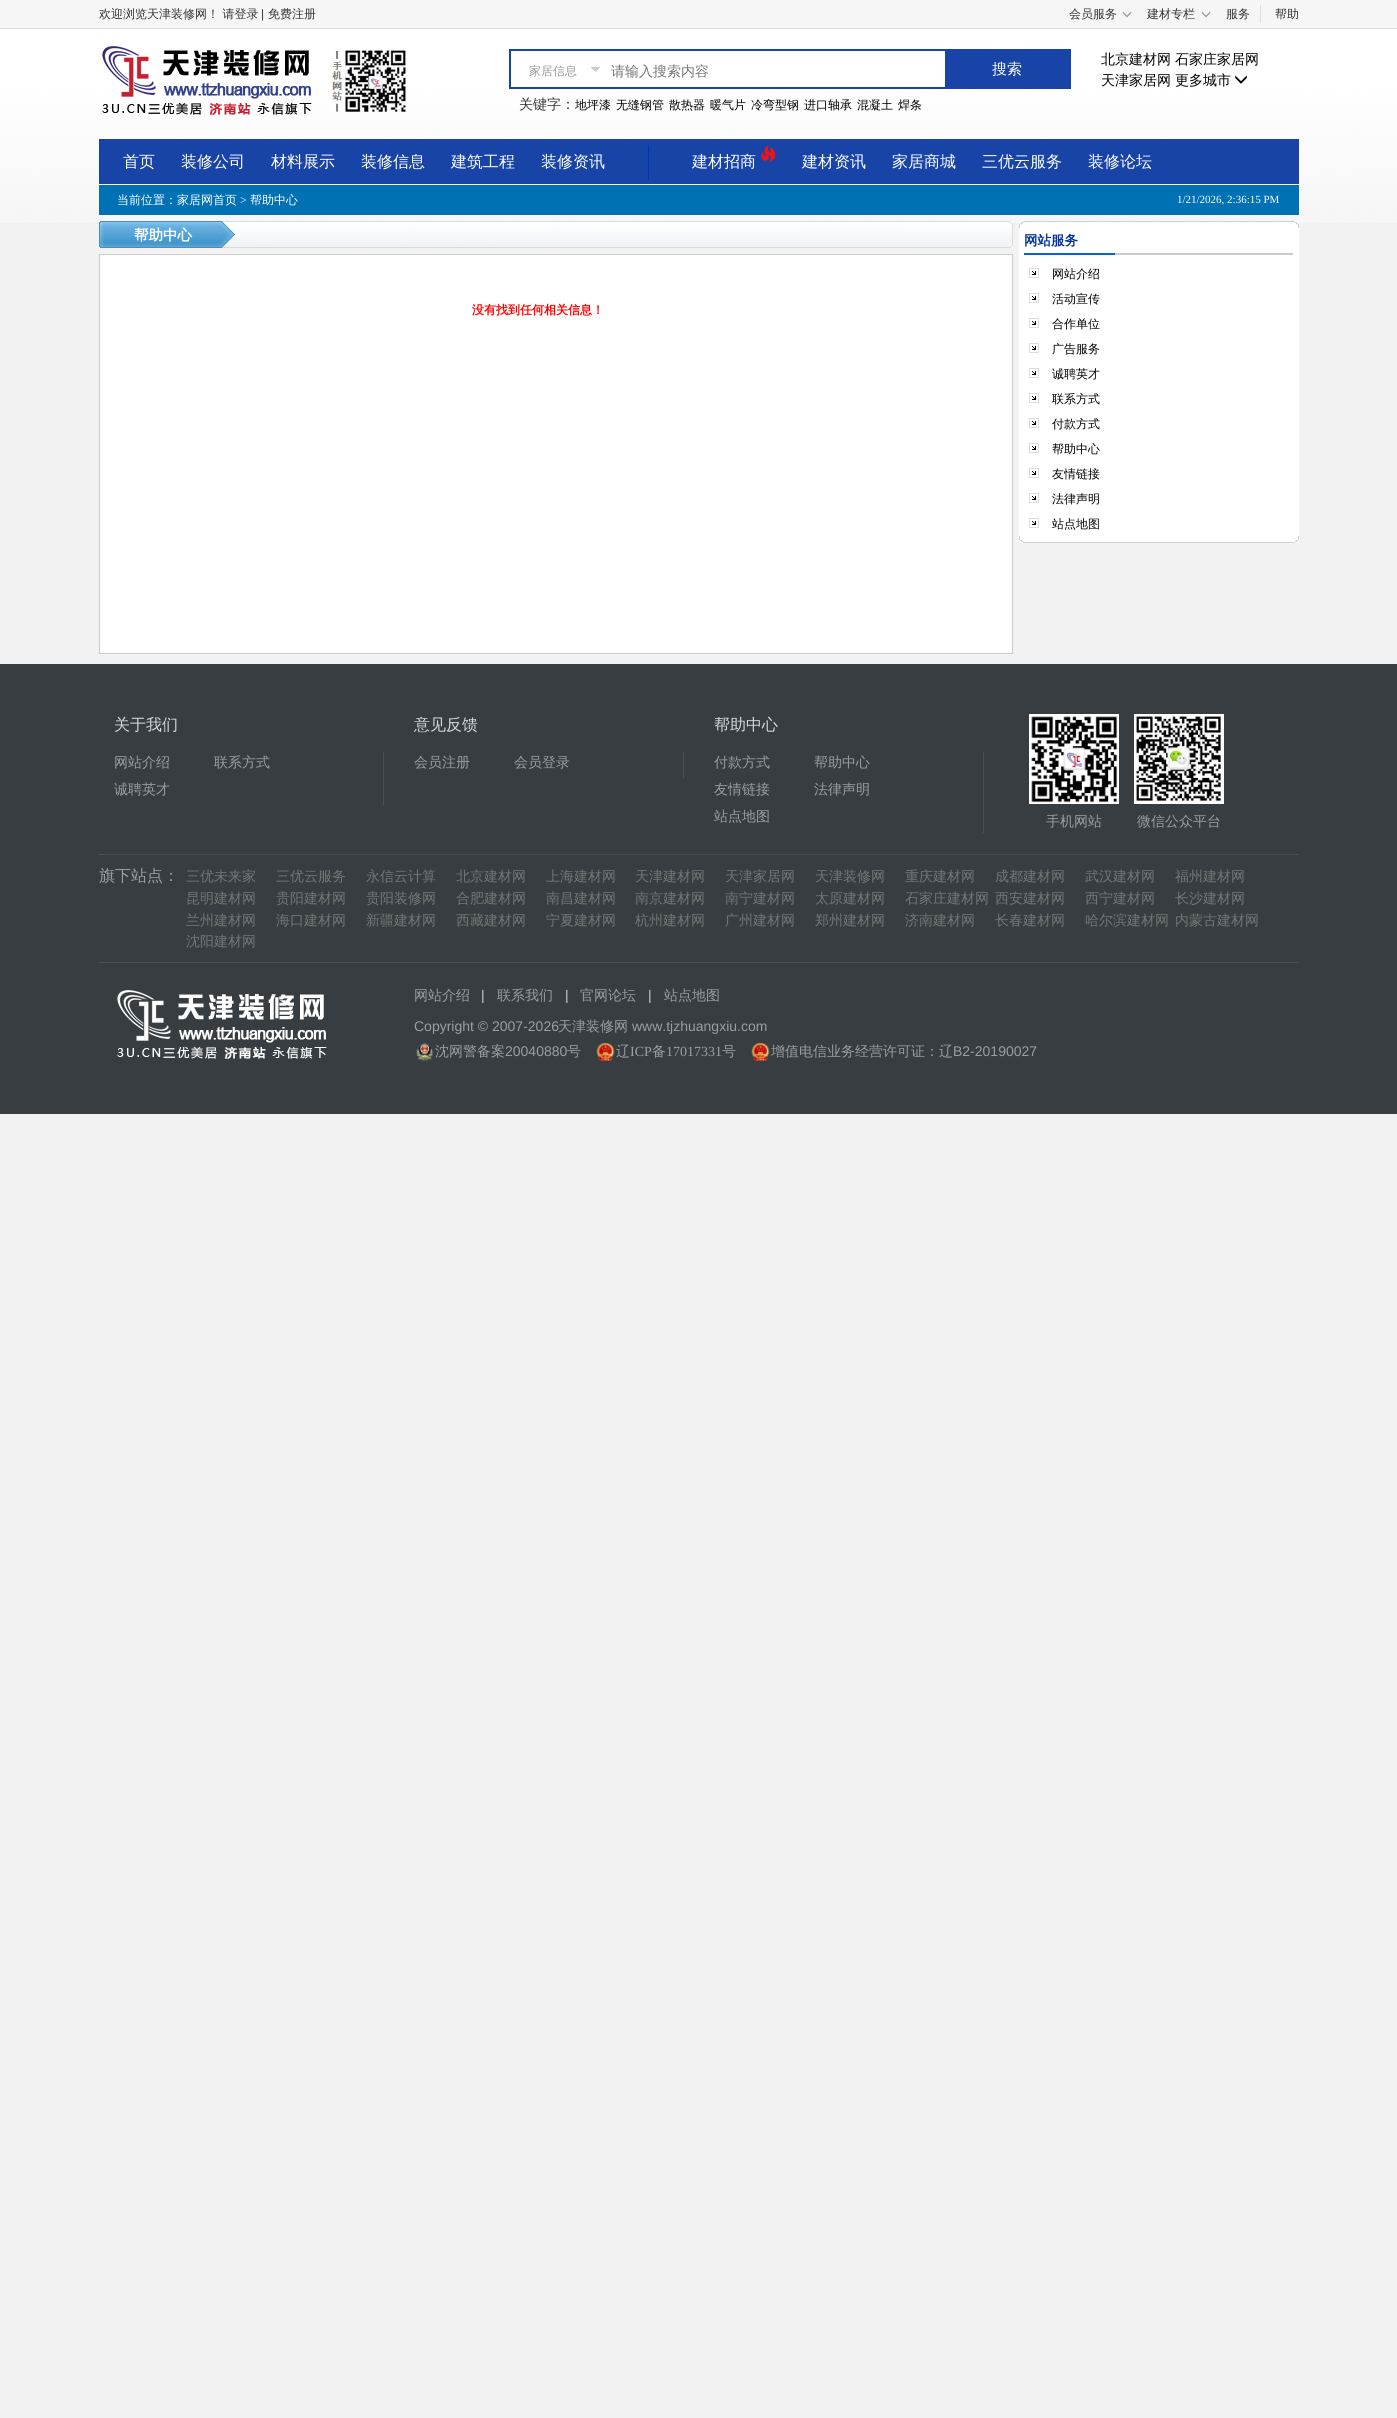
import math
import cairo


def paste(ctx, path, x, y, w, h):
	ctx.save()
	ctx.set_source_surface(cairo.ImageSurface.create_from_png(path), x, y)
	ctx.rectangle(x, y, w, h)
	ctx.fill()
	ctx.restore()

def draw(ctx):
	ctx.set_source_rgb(0.949, 0.949, 0.949)
	ctx.paint()
	ctx.set_source_rgb(0.961, 0.961, 0.961)
	ctx.rectangle(0, 0, 1397, 28)
	ctx.fill()
	ctx.select_font_face('WenQuanYi Zen Hei Medium')
	ctx.set_font_size(12)
	ctx.set_source_rgb(0.2, 0.2, 0.2)
	ctx.move_to(99, 18)
	ctx.show_text('欢迎浏览天津装修网！ 请登录')
	ctx.select_font_face('Liberation Sans')
	ctx.move_to(261, 18)
	ctx.show_text('|')
	ctx.select_font_face('WenQuanYi Zen Hei Medium')
	ctx.move_to(268, 18)
	ctx.show_text('免费注册')
	ctx.move_to(1069, 18)
	ctx.show_text('会员服务')
	paste(ctx, 'media/1.png', 1122, 11, 10, 7)
	ctx.move_to(1147, 18)
	ctx.show_text('建材专栏')
	paste(ctx, 'media/1.png', 1201, 11, 10, 7)
	ctx.set_source_rgb(0.867, 0.867, 0.867)
	ctx.rectangle(1260, 5, 1, 18)
	ctx.fill()
	ctx.set_source_rgb(0.2, 0.2, 0.2)
	ctx.move_to(1226, 18)
	ctx.show_text('服务')
	ctx.move_to(1275, 18)
	ctx.show_text('帮助')
	ctx.set_source_rgb(0.867, 0.867, 0.867)
	ctx.rectangle(0, 28, 1397, 1)
	ctx.fill()
	paste(ctx, 'media/7.png', 0, 29, 1397, 194)
	paste(ctx, 'media/2.png', 102, 46, 210, 69)
	paste(ctx, 'media/3.png', 329, 49, 78, 63)
	ctx.rectangle(510, 50, 560, 38)
	ctx.set_source_rgb(0.094, 0.267, 0.655)
	ctx.stroke()
	paste(ctx, 'media/4.png', 591, 67, 9, 5)
	ctx.set_source_rgb(0.6, 0.6, 0.6)
	ctx.move_to(529, 75)
	ctx.show_text('家居信息')
	ctx.set_font_size(14)
	ctx.set_source_rgb(0.459, 0.459, 0.459)
	ctx.move_to(611, 76)
	ctx.show_text('请输入搜索内容')
	ctx.set_source_rgb(0.094, 0.267, 0.655)
	ctx.rectangle(945, 51, 124, 36)
	ctx.fill()
	ctx.set_font_size(15)
	ctx.set_source_rgb(1, 1, 1)
	ctx.move_to(992, 74)
	ctx.show_text('搜索')
	ctx.set_font_size(14)
	ctx.set_source_rgb(0.2, 0.2, 0.2)
	ctx.move_to(519, 109)
	ctx.show_text('关键字：')
	ctx.set_font_size(12)
	ctx.set_source_rgb(0, 0, 0)
	for x, y, s in [
		(575, 109, '地坪漆'),
		(616, 109, '无缝钢管'),
		(669, 109, '散热器'),
		(710, 109, '暖气片'),
		(751, 109, '冷弯型钢'),
		(804, 109, '进口轴承'),
		(857, 109, '混凝土'),
		(898, 109, '焊条'),
	]:
		ctx.move_to(x, y)
		ctx.show_text(s)
	ctx.set_font_size(14)
	for x, y, s in [
		(1101, 64, '北京建材网'),
		(1175, 64, '石家庄家居网'),
		(1101, 85, '天津家居网'),
		(1175, 85, '更多城市'),
	]:
		ctx.move_to(x, y)
		ctx.show_text(s)
	paste(ctx, 'media/5.png', 1235, 75, 12, 9)
	ctx.set_source_rgb(0.094, 0.267, 0.655)
	ctx.rectangle(99, 139, 1200, 45)
	ctx.fill()
	ctx.set_font_size(16)
	ctx.set_source_rgb(1, 1, 1)
	for x, y, s in [
		(123, 167, '首页'),
		(181, 167, '装修公司'),
		(271, 167, '材料展示'),
		(361, 167, '装修信息'),
		(451, 167, '建筑工程'),
		(541, 167, '装修资讯'),
	]:
		ctx.move_to(x, y)
		ctx.show_text(s)
	ctx.set_source_rgb(0, 0.2, 0.698)
	ctx.rectangle(648, 145, 1, 35)
	ctx.fill()
	ctx.set_source_rgb(1, 1, 1)
	ctx.move_to(692, 167)
	ctx.show_text('建材招商')
	paste(ctx, 'media/6.png', 761, 145, 15, 17)
	for x, y, s in [
		(802, 167, '建材资讯'),
		(892, 167, '家居商城'),
		(982, 167, '三优云服务'),
		(1088, 167, '装修论坛'),
	]:
		ctx.move_to(x, y)
		ctx.show_text(s)
	ctx.set_source_rgb(0, 0.443, 0.71)
	ctx.rectangle(99, 185, 1200, 30)
	ctx.fill()
	ctx.set_font_size(12)
	ctx.set_source_rgb(1, 1, 1)
	ctx.move_to(117, 204)
	ctx.show_text('当前位置：家居网首页')
	ctx.select_font_face('Liberation Serif')
	ctx.move_to(240, 204)
	ctx.show_text('>')
	ctx.select_font_face('WenQuanYi Zen Hei Medium')
	ctx.move_to(250, 204)
	ctx.show_text('帮助中心')
	ctx.select_font_face('Liberation Serif')
	ctx.set_font_size(11)
	ctx.move_to(1177, 203)
	ctx.show_text('1/21/2026, 2:36:15 PM')
	paste(ctx, 'media/8.png', 109, 221, 904, 27)
	paste(ctx, 'media/9.png', 99, 221, 10, 27)
	paste(ctx, 'media/10.png', 114, 221, 100, 27)
	ctx.select_font_face('WenQuanYi Zen Hei', cairo.FONT_SLANT_NORMAL, cairo.FONT_WEIGHT_BOLD)
	ctx.set_font_size(14.5)
	ctx.move_to(134, 240)
	ctx.show_text('帮助中心')
	paste(ctx, 'media/11.png', 214, 221, 25, 27)
	ctx.set_source_rgb(0.8, 0.8, 0.8)
	ctx.rectangle(99, 254, 914, 1)
	ctx.rectangle(1012, 254, 1, 400)
	ctx.rectangle(99, 653, 914, 1)
	ctx.rectangle(99, 254, 1, 400)
	ctx.fill()
	ctx.set_source_rgb(1, 1, 1)
	ctx.rectangle(100, 255, 912, 398)
	ctx.fill()
	ctx.set_font_size(12)
	ctx.set_source_rgb(1, 0, 0)
	ctx.move_to(472, 314)
	ctx.show_text('没有找到任何相关信息！')
	paste(ctx, 'media/12.png', 1019, 221, 280, 7)
	ctx.set_source_rgb(1, 1, 1)
	ctx.rectangle(1019, 228, 280, 308)
	ctx.fill()
	ctx.set_font_size(13.5)
	ctx.set_source_rgb(0, 0.2, 0.6)
	ctx.move_to(1024, 245)
	ctx.show_text('网站服务')
	ctx.set_source_rgb(0, 0.4, 0.8)
	ctx.rectangle(1024, 253, 91, 2)
	ctx.fill()
	ctx.set_source_rgb(0.8, 0.8, 0.8)
	ctx.rectangle(1115, 253, 178, 2)
	ctx.fill()
	paste(ctx, 'media/13.png', 1029, 268, 10, 10)
	ctx.select_font_face('WenQuanYi Zen Hei Medium')
	ctx.set_font_size(12)
	ctx.set_source_rgb(0, 0, 0)
	ctx.move_to(1052, 278)
	ctx.show_text('网站介绍')
	paste(ctx, 'media/13.png', 1029, 293, 10, 10)
	ctx.move_to(1052, 303)
	ctx.show_text('活动宣传')
	paste(ctx, 'media/13.png', 1029, 318, 10, 10)
	ctx.move_to(1052, 328)
	ctx.show_text('合作单位')
	paste(ctx, 'media/13.png', 1029, 343, 10, 10)
	ctx.move_to(1052, 353)
	ctx.show_text('广告服务')
	paste(ctx, 'media/13.png', 1029, 368, 10, 10)
	ctx.move_to(1052, 378)
	ctx.show_text('诚聘英才')
	paste(ctx, 'media/13.png', 1029, 393, 10, 10)
	ctx.move_to(1052, 403)
	ctx.show_text('联系方式')
	paste(ctx, 'media/13.png', 1029, 418, 10, 10)
	ctx.move_to(1052, 428)
	ctx.show_text('付款方式')
	paste(ctx, 'media/13.png', 1029, 443, 10, 10)
	ctx.move_to(1052, 453)
	ctx.show_text('帮助中心')
	paste(ctx, 'media/13.png', 1029, 468, 10, 10)
	ctx.move_to(1052, 478)
	ctx.show_text('友情链接')
	paste(ctx, 'media/13.png', 1029, 493, 10, 10)
	ctx.move_to(1052, 503)
	ctx.show_text('法律声明')
	paste(ctx, 'media/13.png', 1029, 518, 10, 10)
	ctx.move_to(1052, 528)
	ctx.show_text('站点地图')
	paste(ctx, 'media/14.png', 1019, 536, 280, 7)
	ctx.set_source_rgb(0.216, 0.239, 0.255)
	ctx.rectangle(0, 664, 1397, 450)
	ctx.fill()
	ctx.set_source_rgb(0.294, 0.314, 0.329)
	ctx.rectangle(99, 854, 1200, 1)
	ctx.fill()
	ctx.set_font_size(16)
	ctx.set_source_rgb(0.843, 0.847, 0.851)
	ctx.move_to(114, 730)
	ctx.show_text('关于我们')
	ctx.set_source_rgb(0.294, 0.314, 0.329)
	ctx.rectangle(383, 752, 1, 54)
	ctx.fill()
	ctx.set_font_size(14)
	ctx.set_source_rgb(0.608, 0.62, 0.627)
	ctx.move_to(114, 767)
	ctx.show_text('网站介绍')
	ctx.save()
	ctx.rectangle(214, 752, 100, 21)
	ctx.clip()
	ctx.move_to(214, 767)
	ctx.show_text('联系方式')
	ctx.restore()
	ctx.move_to(114, 794)
	ctx.show_text('诚聘英才')
	ctx.set_font_size(16)
	ctx.set_source_rgb(0.843, 0.847, 0.851)
	ctx.move_to(414, 730)
	ctx.show_text('意见反馈')
	ctx.set_source_rgb(0.294, 0.314, 0.329)
	ctx.rectangle(683, 752, 1, 27)
	ctx.fill()
	ctx.set_font_size(14)
	ctx.set_source_rgb(0.608, 0.62, 0.627)
	ctx.move_to(414, 767)
	ctx.show_text('会员注册')
	ctx.move_to(514, 767)
	ctx.show_text('会员登录')
	ctx.set_font_size(16)
	ctx.set_source_rgb(0.843, 0.847, 0.851)
	ctx.move_to(714, 730)
	ctx.show_text('帮助中心')
	ctx.set_source_rgb(0.294, 0.314, 0.329)
	ctx.rectangle(983, 752, 1, 81)
	ctx.fill()
	ctx.set_font_size(14)
	ctx.set_source_rgb(0.608, 0.62, 0.627)
	for x, y, s in [
		(714, 767, '付款方式'),
		(814, 767, '帮助中心'),
		(714, 794, '友情链接'),
		(814, 794, '法律声明'),
	]:
		ctx.move_to(x, y)
		ctx.show_text(s)
	ctx.save()
	ctx.rectangle(714, 806, 100, 21)
	ctx.clip()
	ctx.move_to(714, 821)
	ctx.show_text('站点地图')
	ctx.restore()
	paste(ctx, 'media/15.png', 1029, 714, 90, 90)
	ctx.move_to(1046, 826)
	ctx.show_text('手机网站')
	paste(ctx, 'media/16.png', 1134, 714, 90, 90)
	ctx.move_to(1137, 826)
	ctx.show_text('微信公众平台')
	ctx.set_source_rgb(0.294, 0.314, 0.329)
	ctx.rectangle(99, 962, 1200, 1)
	ctx.fill()
	ctx.set_font_size(16)
	ctx.set_source_rgb(0.608, 0.62, 0.627)
	ctx.move_to(99, 881)
	ctx.show_text('旗下站点：')
	ctx.set_font_size(14)
	ctx.set_source_rgb(0.459, 0.459, 0.459)
	for x, y, s in [
		(186, 881, '三优未来家'),
		(276, 881, '三优云服务'),
		(366, 881, '永信云计算'),
		(456, 881, '北京建材网'),
		(546, 881, '上海建材网'),
		(635, 881, '天津建材网'),
		(725, 881, '天津家居网'),
		(815, 881, '天津装修网'),
		(905, 881, '重庆建材网'),
		(995, 881, '成都建材网'),
		(1085, 881, '武汉建材网'),
		(1175, 881, '福州建材网'),
		(186, 903, '昆明建材网'),
		(276, 903, '贵阳建材网'),
		(366, 903, '贵阳装修网'),
		(456, 903, '合肥建材网'),
		(546, 903, '南昌建材网'),
		(635, 903, '南京建材网'),
		(725, 903, '南宁建材网'),
		(815, 903, '太原建材网'),
		(905, 903, '石家庄建材网'),
		(995, 903, '西安建材网'),
		(1085, 903, '西宁建材网'),
		(1175, 903, '长沙建材网'),
		(186, 925, '兰州建材网'),
		(276, 925, '海口建材网'),
		(366, 925, '新疆建材网'),
		(456, 925, '西藏建材网'),
		(546, 925, '宁夏建材网'),
		(635, 925, '杭州建材网'),
		(725, 925, '广州建材网'),
		(815, 925, '郑州建材网'),
		(905, 925, '济南建材网'),
		(995, 925, '长春建材网'),
		(1085, 925, '哈尔滨建材网'),
		(1175, 925, '内蒙古建材网'),
		(186, 946, '沈阳建材网'),
	]:
		ctx.move_to(x, y)
		ctx.show_text(s)
	paste(ctx, 'media/17.png', 117, 990, 210, 69)
	ctx.set_source_rgb(0.608, 0.62, 0.627)
	ctx.move_to(414, 1000)
	ctx.show_text('网站介绍')
	ctx.select_font_face('Liberation Sans')
	ctx.set_source_rgb(0.8, 0.8, 0.8)
	ctx.move_to(481, 1000)
	ctx.show_text('|')
	ctx.select_font_face('WenQuanYi Zen Hei Medium')
	ctx.set_source_rgb(0.608, 0.62, 0.627)
	ctx.move_to(497, 1000)
	ctx.show_text('联系我们')
	ctx.select_font_face('Liberation Sans')
	ctx.set_source_rgb(0.8, 0.8, 0.8)
	ctx.move_to(565, 1000)
	ctx.show_text('|')
	ctx.select_font_face('WenQuanYi Zen Hei Medium')
	ctx.set_source_rgb(0.608, 0.62, 0.627)
	ctx.move_to(580, 1000)
	ctx.show_text('官网论坛')
	ctx.select_font_face('Liberation Sans')
	ctx.set_source_rgb(0.8, 0.8, 0.8)
	ctx.move_to(648, 1000)
	ctx.show_text('|')
	ctx.select_font_face('WenQuanYi Zen Hei Medium')
	ctx.set_source_rgb(0.608, 0.62, 0.627)
	ctx.move_to(664, 1000)
	ctx.show_text('站点地图')
	ctx.select_font_face('Liberation Sans')
	ctx.move_to(414, 1031)
	ctx.show_text('Copyright © 2007-2026')
	ctx.select_font_face('WenQuanYi Zen Hei Medium')
	ctx.move_to(558, 1031)
	ctx.show_text('天津装修网')
	ctx.select_font_face('Liberation Sans')
	ctx.move_to(632, 1031)
	ctx.show_text('www.tjzhuangxiu.com')
	paste(ctx, 'media/18.png', 416, 1043, 18, 18)
	ctx.select_font_face('WenQuanYi Zen Hei Medium')
	ctx.move_to(435, 1056)
	ctx.show_text('沈网警备案')
	ctx.select_font_face('Liberation Sans')
	ctx.move_to(505, 1056)
	ctx.show_text('20040880')
	ctx.select_font_face('WenQuanYi Zen Hei Medium')
	ctx.move_to(567, 1056)
	ctx.show_text('号')
	paste(ctx, 'media/19.png', 596, 1043, 19, 19)
	ctx.move_to(616, 1056)
	ctx.show_text('辽')
	ctx.select_font_face('Liberation Serif')
	ctx.move_to(630, 1056)
	ctx.show_text('ICP')
	ctx.select_font_face('WenQuanYi Zen Hei Medium')
	ctx.move_to(652, 1056)
	ctx.show_text('备')
	ctx.select_font_face('Liberation Serif')
	ctx.move_to(666, 1056)
	ctx.show_text('17017331')
	ctx.select_font_face('WenQuanYi Zen Hei Medium')
	ctx.move_to(722, 1056)
	ctx.show_text('号')
	paste(ctx, 'media/19.png', 751, 1043, 19, 19)
	ctx.move_to(771, 1056)
	ctx.show_text('增值电信业务经营许可证：辽')
	ctx.select_font_face('Liberation Sans')
	ctx.move_to(953, 1056)
	ctx.show_text('B2-20190027')


surface = cairo.ImageSurface(cairo.FORMAT_RGB24, 1397, 2418)
ctx = cairo.Context(surface)
options = cairo.FontOptions()
options.set_hint_metrics(cairo.HINT_METRICS_OFF)
options.set_hint_style(cairo.HINT_STYLE_NONE)
ctx.set_font_options(options)
ctx.set_miter_limit(4)
draw(ctx)
surface.write_to_png('image.png')
